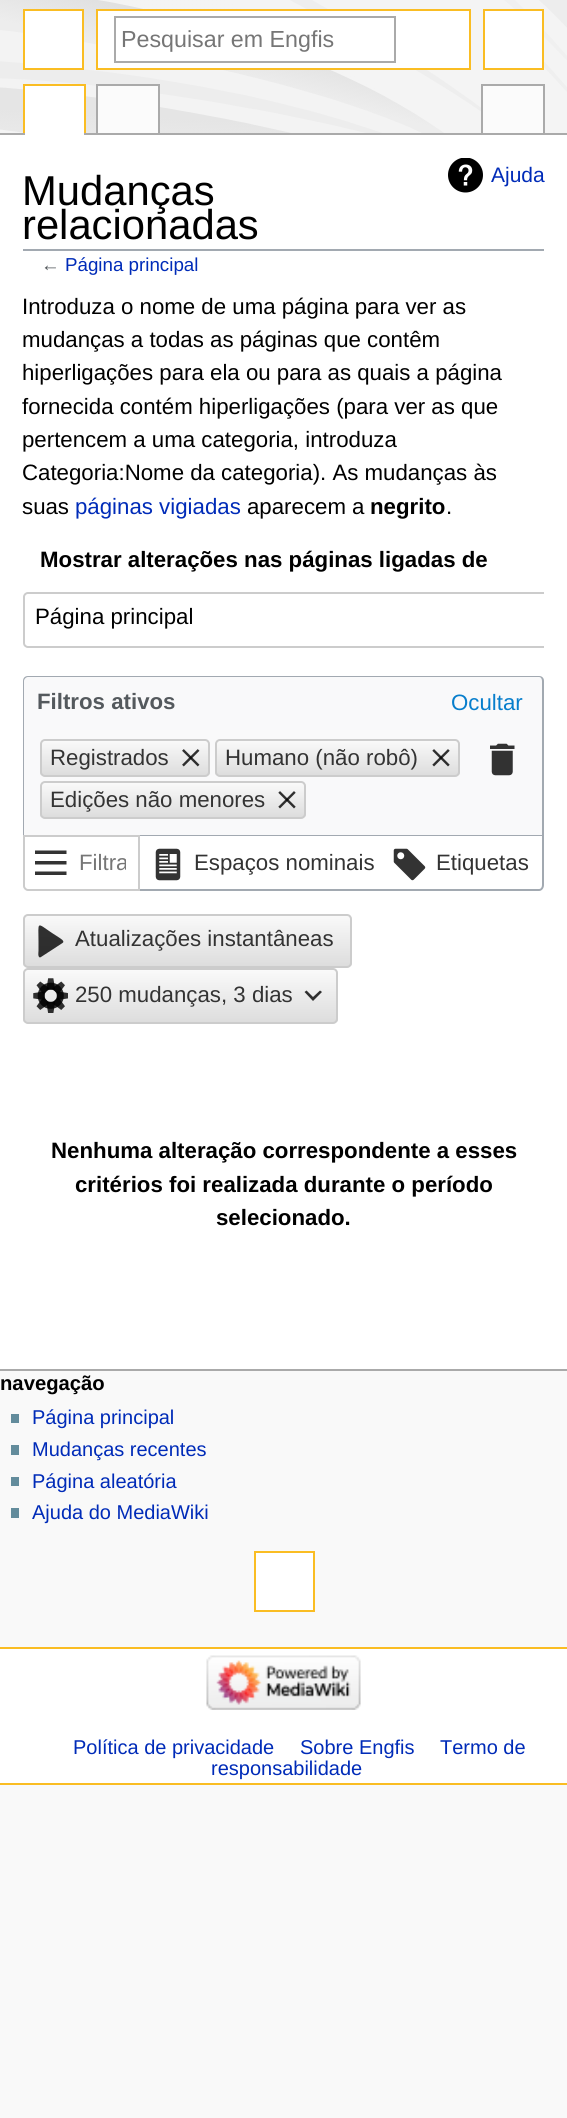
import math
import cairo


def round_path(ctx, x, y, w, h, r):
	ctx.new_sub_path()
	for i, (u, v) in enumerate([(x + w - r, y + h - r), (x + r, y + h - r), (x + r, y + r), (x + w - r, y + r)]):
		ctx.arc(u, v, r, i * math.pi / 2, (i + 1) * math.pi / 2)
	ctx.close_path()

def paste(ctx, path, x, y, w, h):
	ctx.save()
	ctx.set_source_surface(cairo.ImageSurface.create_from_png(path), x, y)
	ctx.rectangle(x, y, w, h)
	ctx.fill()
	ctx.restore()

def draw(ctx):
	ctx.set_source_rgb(0.976, 0.976, 0.976)
	ctx.paint()
	paste(ctx, 'media/1.png', 0, 0, 567, 133)
	ctx.set_source_rgb(1, 1, 1)
	ctx.rectangle(24, 10, 59, 59)
	ctx.fill_preserve()
	ctx.set_source_rgb(0.98, 0.741, 0.137)
	ctx.stroke()
	ctx.set_source_rgb(1, 1, 1)
	ctx.rectangle(484, 10, 59, 59)
	ctx.fill_preserve()
	ctx.set_source_rgb(0.98, 0.741, 0.137)
	ctx.stroke()
	ctx.set_source_rgb(1, 1, 1)
	ctx.rectangle(97, 10, 373, 59)
	ctx.fill_preserve()
	ctx.set_source_rgb(0.98, 0.741, 0.137)
	ctx.stroke()
	ctx.rectangle(115, 17, 280, 45)
	ctx.set_source_rgb(0.667, 0.667, 0.667)
	ctx.stroke()
	ctx.select_font_face('Liberation Sans')
	ctx.set_font_size(23.25)
	ctx.set_source_rgb(0.463, 0.463, 0.463)
	ctx.move_to(121, 47)
	ctx.show_text('Pesquisar em Engfis')
	ctx.select_font_face('Liberation Sans', cairo.FONT_SLANT_NORMAL, cairo.FONT_WEIGHT_BOLD)
	ctx.set_font_size(20.25)
	ctx.set_source_rgb(0, 0, 0)
	ctx.move_to(0, 1390)
	ctx.show_text('navegação')
	ctx.set_source_rgb(0.388, 0.549, 0.612)
	ctx.rectangle(11, 1414, 8, 9)
	ctx.fill()
	ctx.select_font_face('Liberation Sans')
	ctx.set_font_size(20)
	ctx.set_source_rgb(0, 0.169, 0.722)
	ctx.move_to(32, 1424)
	ctx.show_text('Página principal')
	ctx.set_source_rgb(0.388, 0.549, 0.612)
	ctx.rectangle(11, 1445, 8, 10)
	ctx.fill()
	ctx.set_source_rgb(0, 0.169, 0.722)
	ctx.move_to(32, 1456)
	ctx.show_text('Mudanças recentes')
	ctx.set_source_rgb(0.388, 0.549, 0.612)
	ctx.rectangle(11, 1477, 8, 9)
	ctx.fill()
	ctx.set_source_rgb(0, 0.169, 0.722)
	ctx.move_to(32, 1488)
	ctx.show_text('Página aleatória')
	ctx.set_source_rgb(0.388, 0.549, 0.612)
	ctx.rectangle(11, 1508, 8, 10)
	ctx.fill()
	ctx.set_source_rgb(0, 0.169, 0.722)
	ctx.move_to(32, 1519)
	ctx.show_text('Ajuda do MediaWiki')
	ctx.set_source_rgb(0.98, 0.741, 0.137)
	ctx.rectangle(23, 84, 63, 2)
	ctx.rectangle(84, 84, 2, 51)
	ctx.rectangle(23, 84, 2, 51)
	ctx.fill()
	ctx.set_source_rgb(0.667, 0.667, 0.667)
	ctx.rectangle(96, 84, 63, 2)
	ctx.rectangle(158, 84, 2, 51)
	ctx.rectangle(96, 84, 2, 51)
	ctx.rectangle(481, 84, 63, 2)
	ctx.rectangle(543, 84, 2, 51)
	ctx.rectangle(481, 84, 2, 51)
	ctx.rectangle(0, 133, 567, 2)
	ctx.fill()
	ctx.set_source_rgb(1, 1, 1)
	ctx.rectangle(25, 86, 59, 49)
	ctx.fill()
	ctx.set_source_rgb(0.984, 0.984, 0.984)
	ctx.rectangle(98, 86, 60, 47)
	ctx.rectangle(483, 86, 60, 47)
	ctx.fill()
	ctx.set_source_rgb(1, 1, 1)
	ctx.rectangle(255, 1552, 59, 59)
	ctx.fill_preserve()
	ctx.set_source_rgb(0.98, 0.741, 0.137)
	ctx.stroke()
	ctx.set_source_rgb(1, 1, 1)
	ctx.rectangle(0, 135, 567, 1234)
	ctx.fill()
	ctx.set_source_rgb(0.667, 0.667, 0.667)
	ctx.rectangle(0, 1369, 567, 2)
	ctx.fill()
	ctx.set_source_rgb(0.635, 0.663, 0.694)
	ctx.rectangle(23, 249, 521, 2)
	ctx.fill()
	ctx.set_font_size(41.75)
	ctx.set_source_rgb(0, 0, 0)
	ctx.move_to(22, 205)
	ctx.show_text('Mudanças')
	ctx.move_to(22, 239)
	ctx.show_text('relacionadas')
	paste(ctx, 'media/2.png', 448, 158, 35, 35)
	ctx.set_font_size(21)
	ctx.set_source_rgb(0, 0.169, 0.722)
	ctx.move_to(491, 182)
	ctx.show_text('Ajuda')
	ctx.set_font_size(18.75)
	ctx.set_source_rgb(0.329, 0.349, 0.365)
	ctx.move_to(41, 271)
	ctx.show_text('←')
	ctx.set_source_rgb(0, 0.169, 0.722)
	ctx.move_to(65, 271)
	ctx.show_text('Página principal')
	ctx.set_font_size(22.25)
	ctx.set_source_rgb(0, 0, 0)
	for x, y, s in [
		(22, 314, 'Introduza o nome de uma página para ver as'),
		(22, 347, 'mudanças a todas as páginas que contêm'),
		(22, 380, 'hiperligações para ela ou para as quais a página'),
		(22, 414, 'fornecida contém hiperligações (para ver as que'),
		(22, 447, 'pertencem a uma categoria, introduza'),
		(22, 480, 'Categoria:Nome da categoria). As mudanças às'),
		(22, 514, 'suas'),
	]:
		ctx.move_to(x, y)
		ctx.show_text(s)
	ctx.set_source_rgb(0, 0.169, 0.722)
	ctx.move_to(75, 514)
	ctx.show_text('páginas vigiadas')
	ctx.set_source_rgb(0, 0, 0)
	ctx.move_to(247, 514)
	ctx.show_text('aparecem a')
	ctx.select_font_face('Liberation Sans', cairo.FONT_SLANT_NORMAL, cairo.FONT_WEIGHT_BOLD)
	ctx.move_to(370, 514)
	ctx.show_text('negrito')
	ctx.select_font_face('Liberation Sans')
	ctx.move_to(446, 514)
	ctx.show_text('.')
	ctx.select_font_face('Liberation Sans', cairo.FONT_SLANT_NORMAL, cairo.FONT_WEIGHT_BOLD)
	ctx.move_to(40, 567)
	ctx.show_text('Mostrar alterações nas páginas ligadas de')
	ctx.save()
	ctx.rectangle(23, 254, 521, 1094)
	ctx.clip()
	round_path(ctx, 24, 593, 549, 54, 4)
	ctx.set_source_rgb(0.8, 0.8, 0.8)
	ctx.stroke()
	ctx.restore()
	ctx.select_font_face('Liberation Sans')
	ctx.move_to(35, 624)
	ctx.show_text('Página principal')
	ctx.set_source_rgb(0.973, 0.976, 0.98)
	ctx.new_path()
	ctx.move_to(28, 676)
	ctx.line_to(539, 676)
	ctx.curve_to(542, 676, 544, 678, 544, 681)
	ctx.line_to(544, 835)
	ctx.line_to(23, 835)
	ctx.line_to(23, 681)
	ctx.curve_to(23, 678, 25, 676, 28, 676)
	ctx.close_path()
	ctx.fill()
	ctx.set_source_rgb(0.635, 0.663, 0.694)
	ctx.set_fill_rule(cairo.FILL_RULE_EVEN_ODD)
	ctx.new_path()
	ctx.move_to(28, 676)
	ctx.line_to(539, 676)
	ctx.curve_to(542, 676, 544, 678, 544, 681)
	ctx.line_to(544, 835)
	ctx.line_to(23, 835)
	ctx.line_to(23, 681)
	ctx.curve_to(23, 678, 25, 676, 28, 676)
	ctx.close_path()
	ctx.move_to(28, 677)
	ctx.line_to(539, 677)
	ctx.curve_to(541, 677, 542, 679, 542, 681)
	ctx.line_to(542, 835)
	ctx.line_to(24, 835)
	ctx.line_to(24, 681)
	ctx.curve_to(24, 679, 26, 677, 28, 677)
	ctx.close_path()
	ctx.fill()
	ctx.select_font_face('Liberation Sans', cairo.FONT_SLANT_NORMAL, cairo.FONT_WEIGHT_BOLD)
	ctx.set_source_rgb(0.329, 0.349, 0.365)
	ctx.move_to(37, 709)
	ctx.show_text('Filtros ativos')
	ctx.select_font_face('Liberation Sans')
	ctx.set_source_rgb(0.031, 0.494, 0.8)
	ctx.move_to(451, 710)
	ctx.show_text('Ocultar')
	ctx.save()
	ctx.set_fill_rule(cairo.FILL_RULE_WINDING)
	round_path(ctx, 40, 739, 170, 38, 5)
	ctx.clip()
	gradient = cairo.LinearGradient(125, 740, 125, 775)
	gradient.add_color_stop_rgba(0, 0.98, 0.98, 0.98, 1)
	gradient.add_color_stop_rgba(1, 0.867, 0.867, 0.867, 1)
	ctx.set_source(gradient)
	ctx.rectangle(40, 740, 170, 35)
	ctx.fill()
	ctx.restore()
	round_path(ctx, 41, 740, 168, 36, 4)
	ctx.set_source_rgb(0.8, 0.8, 0.8)
	ctx.stroke()
	ctx.set_source_rgb(0.2, 0.2, 0.2)
	ctx.move_to(50, 765)
	ctx.show_text('Registrados')
	paste(ctx, 'media/3.png', 182, 749, 18, 18)
	ctx.save()
	ctx.set_fill_rule(cairo.FILL_RULE_WINDING)
	round_path(ctx, 215, 739, 245, 38, 5)
	ctx.clip()
	gradient = cairo.LinearGradient(338, 740, 338, 775)
	gradient.add_color_stop_rgba(0, 0.98, 0.98, 0.98, 1)
	gradient.add_color_stop_rgba(1, 0.867, 0.867, 0.867, 1)
	ctx.set_source(gradient)
	ctx.rectangle(215, 740, 245, 35)
	ctx.fill()
	ctx.restore()
	round_path(ctx, 216, 740, 243, 36, 4)
	ctx.set_source_rgb(0.8, 0.8, 0.8)
	ctx.stroke()
	ctx.set_source_rgb(0.2, 0.2, 0.2)
	ctx.move_to(225, 765)
	ctx.show_text('Humano (não robô)')
	paste(ctx, 'media/4.png', 432, 749, 18, 18)
	ctx.save()
	ctx.set_fill_rule(cairo.FILL_RULE_WINDING)
	round_path(ctx, 40, 781, 266, 38, 5)
	ctx.clip()
	gradient = cairo.LinearGradient(173, 782, 173, 817)
	gradient.add_color_stop_rgba(0, 0.98, 0.98, 0.98, 1)
	gradient.add_color_stop_rgba(1, 0.867, 0.867, 0.867, 1)
	ctx.set_source(gradient)
	ctx.rectangle(40, 782, 266, 35)
	ctx.fill()
	ctx.restore()
	round_path(ctx, 41, 782, 264, 36, 4)
	ctx.set_source_rgb(0.8, 0.8, 0.8)
	ctx.stroke()
	ctx.set_source_rgb(0.2, 0.2, 0.2)
	ctx.move_to(50, 807)
	ctx.show_text('Edições não menores')
	paste(ctx, 'media/4.png', 278, 791, 18, 18)
	paste(ctx, 'media/5.png', 490, 743, 25, 33)
	ctx.new_path()
	ctx.move_to(24, 836)
	ctx.line_to(139, 836)
	ctx.line_to(139, 890)
	ctx.line_to(28, 890)
	ctx.curve_to(26, 890, 24, 888, 24, 886)
	ctx.close_path()
	ctx.set_source_rgb(0.8, 0.8, 0.8)
	ctx.stroke()
	paste(ctx, 'media/6.png', 35, 850, 32, 25)
	ctx.save()
	ctx.set_fill_rule(cairo.FILL_RULE_WINDING)
	ctx.rectangle(79, 851, 47, 24)
	ctx.clip()
	ctx.set_source_rgb(0.463, 0.463, 0.463)
	ctx.move_to(79, 870)
	ctx.show_text('Filtra')
	ctx.restore()
	ctx.set_source_rgb(0.635, 0.663, 0.694)
	ctx.new_path()
	ctx.move_to(140, 835)
	ctx.line_to(544, 835)
	ctx.line_to(544, 885)
	ctx.curve_to(544, 888, 542, 891, 539, 891)
	ctx.line_to(140, 891)
	ctx.close_path()
	ctx.move_to(140, 836)
	ctx.line_to(542, 836)
	ctx.line_to(542, 885)
	ctx.curve_to(542, 887, 541, 889, 539, 889)
	ctx.line_to(140, 889)
	ctx.close_path()
	ctx.fill()
	paste(ctx, 'media/7.png', 155, 848, 26, 33)
	ctx.set_source_rgb(0.2, 0.2, 0.2)
	ctx.move_to(194, 870)
	ctx.show_text('Espaços nominais')
	paste(ctx, 'media/8.png', 393, 848, 33, 33)
	ctx.move_to(436, 870)
	ctx.show_text('Etiquetas')
	ctx.save()
	ctx.set_fill_rule(cairo.FILL_RULE_WINDING)
	round_path(ctx, 23, 914, 329, 54, 5)
	ctx.clip()
	gradient = cairo.LinearGradient(187, 915, 187, 966)
	gradient.add_color_stop_rgba(0, 0.98, 0.98, 0.98, 1)
	gradient.add_color_stop_rgba(1, 0.867, 0.867, 0.867, 1)
	ctx.set_source(gradient)
	ctx.rectangle(23, 915, 329, 51)
	ctx.fill()
	ctx.restore()
	round_path(ctx, 24, 915, 327, 52, 4)
	ctx.set_source_rgb(0.8, 0.8, 0.8)
	ctx.stroke()
	ctx.set_source_rgba(0, 0, 0, 0.8)
	ctx.set_fill_rule(cairo.FILL_RULE_WINDING)
	ctx.new_path()
	ctx.move_to(41, 957)
	ctx.line_to(40, 957.5)
	ctx.curve_to(37.5, 957, 38.5, 952, 38.5, 951)
	ctx.line_to(38.5, 941.5)
	ctx.curve_to(38.5, 921.5, 36, 922, 52, 933)
	ctx.line_to(59, 937.5)
	ctx.curve_to(59.5, 938, 65.5, 941, 62.5, 943)
	ctx.close_path()
	ctx.fill()
	ctx.set_source_rgb(0.2, 0.2, 0.2)
	ctx.move_to(75, 946)
	ctx.show_text('Atualizações instantâneas')
	ctx.save()
	round_path(ctx, 23, 968, 315, 56, 5)
	ctx.clip()
	gradient = cairo.LinearGradient(180, 970, 180, 1022)
	gradient.add_color_stop_rgba(0, 0.98, 0.98, 0.98, 1)
	gradient.add_color_stop_rgba(1, 0.867, 0.867, 0.867, 1)
	ctx.set_source(gradient)
	ctx.rectangle(23, 970, 315, 52)
	ctx.fill()
	ctx.restore()
	round_path(ctx, 24, 969, 313, 54, 4)
	ctx.set_source_rgb(0.8, 0.8, 0.8)
	ctx.stroke()
	paste(ctx, 'media/9.png', 33, 978, 35, 35)
	ctx.set_source_rgb(0.2, 0.2, 0.2)
	ctx.move_to(75, 1002)
	ctx.show_text('250 mudanças, 3 dias')
	ctx.set_source_rgba(0, 0, 0, 0.8)
	ctx.new_path()
	ctx.move_to(320, 990.5)
	ctx.line_to(313, 997)
	ctx.line_to(306.5, 990.5)
	ctx.line_to(304.5, 992)
	ctx.line_to(313, 1001)
	ctx.line_to(322, 992)
	ctx.close_path()
	ctx.fill()
	ctx.select_font_face('Liberation Sans', cairo.FONT_SLANT_NORMAL, cairo.FONT_WEIGHT_BOLD)
	ctx.set_source_rgb(0, 0, 0)
	for x, y, s in [
		(51, 1158, 'Nenhuma alteração correspondente a esses'),
		(75, 1192, 'critérios foi realizada durante o período'),
		(216, 1225, 'selecionado.'),
	]:
		ctx.move_to(x, y)
		ctx.show_text(s)
	ctx.set_source_rgb(1, 1, 1)
	ctx.rectangle(0, 1649, 567, 134)
	ctx.fill()
	ctx.set_source_rgb(0.98, 0.741, 0.137)
	ctx.rectangle(0, 1647, 567, 2)
	ctx.rectangle(0, 1783, 567, 2)
	ctx.fill()
	paste(ctx, 'media/10.png', 206, 1655, 155, 55)
	ctx.select_font_face('Liberation Sans')
	ctx.set_font_size(20)
	ctx.set_source_rgb(0, 0.169, 0.722)
	for x, y, s in [
		(73, 1754, 'Política de privacidade'),
		(300, 1754, 'Sobre Engfis'),
		(440, 1754, 'Termo de'),
		(211, 1775, 'responsabilidade'),
	]:
		ctx.move_to(x, y)
		ctx.show_text(s)


surface = cairo.ImageSurface(cairo.FORMAT_RGB24, 567, 2118)
ctx = cairo.Context(surface)
options = cairo.FontOptions()
options.set_hint_metrics(cairo.HINT_METRICS_OFF)
options.set_hint_style(cairo.HINT_STYLE_NONE)
ctx.set_font_options(options)
ctx.set_miter_limit(4)
draw(ctx)
surface.write_to_png('image.png')
